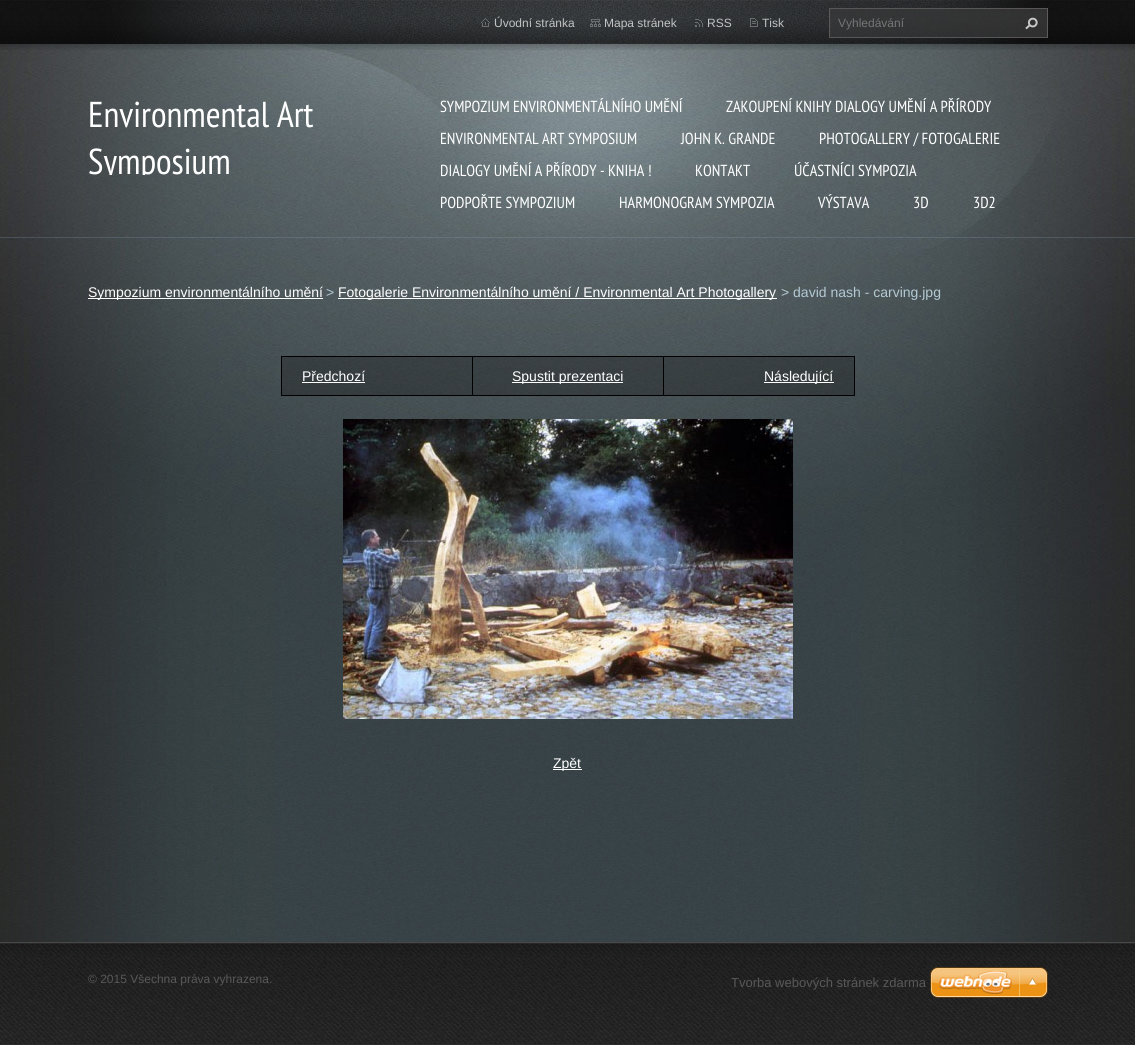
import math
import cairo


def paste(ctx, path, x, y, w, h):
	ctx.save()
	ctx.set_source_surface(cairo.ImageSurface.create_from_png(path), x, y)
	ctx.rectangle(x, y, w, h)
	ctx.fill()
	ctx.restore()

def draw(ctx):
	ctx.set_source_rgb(1, 1, 1)
	ctx.paint()
	paste(ctx, 'media/1.png', 0, 600, 1135, 342)
	paste(ctx, 'media/2.png', 0, 44, 1135, 556)
	ctx.set_source_rgba(0.514, 0.62, 0.725, 0.26)
	ctx.rectangle(0, 237, 1135, 1)
	ctx.fill()
	paste(ctx, 'media/3.png', 0, 0, 1135, 50)
	paste(ctx, 'media/4.png', 107, 0, 925, 44)
	paste(ctx, 'media/5.png', 481, 18, 9, 9)
	ctx.select_font_face('Liberation Sans')
	ctx.set_font_size(12)
	ctx.set_source_rgb(0.765, 0.765, 0.765)
	ctx.move_to(494, 27)
	ctx.show_text('Úvodní stránka')
	paste(ctx, 'media/6.png', 590, 19, 11, 8)
	ctx.move_to(604, 27)
	ctx.show_text('Mapa stránek')
	paste(ctx, 'media/7.png', 695, 19, 8, 8)
	ctx.move_to(707, 27)
	ctx.show_text('RSS')
	paste(ctx, 'media/8.png', 750, 18, 8, 9)
	ctx.move_to(762, 27)
	ctx.show_text('Tisk')
	paste(ctx, 'media/9.png', 829, 8, 219, 30)
	ctx.set_source_rgb(0.459, 0.459, 0.459)
	ctx.move_to(838, 27)
	ctx.show_text('Vyhledávání')
	paste(ctx, 'media/10.png', 1025, 17, 13, 13)
	ctx.select_font_face('PT Sans Narrow')
	ctx.set_font_size(36)
	ctx.set_source_rgb(1, 1, 1)
	ctx.move_to(88, 127)
	ctx.show_text('Environmental Art')
	ctx.save()
	ctx.rectangle(88, 80, 300, 95)
	ctx.clip()
	ctx.move_to(88, 174)
	ctx.show_text('Symposium')
	ctx.restore()
	ctx.set_font_size(16)
	for x, y, s in [
		(440, 112, 'SYMPOZIUM ENVIRONMENTÁLNÍHO UMĚNÍ'),
		(726, 112, 'ZAKOUPENÍ KNIHY DIALOGY UMĚNÍ A PŘÍRODY'),
		(440, 144, 'ENVIRONMENTAL ART SYMPOSIUM'),
		(681, 144, 'JOHN K. GRANDE'),
		(819, 144, 'PHOTOGALLERY / FOTOGALERIE'),
		(440, 176, 'DIALOGY UMĚNÍ A PŘÍRODY - KNIHA !'),
		(695, 176, 'KONTAKT'),
		(794, 176, 'ÚČASTNÍCI SYMPOZIA'),
		(440, 208, 'PODPOŘTE SYMPOZIUM'),
		(619, 208, 'HARMONOGRAM SYMPOZIA'),
		(818, 208, 'VÝSTAVA'),
		(913, 208, '3D'),
		(973, 208, '3D2'),
	]:
		ctx.move_to(x, y)
		ctx.show_text(s)
	ctx.rectangle(88, 298, 235, 1)
	ctx.fill()
	ctx.select_font_face('Liberation Sans')
	ctx.set_font_size(14)
	ctx.move_to(88, 297)
	ctx.show_text('Sympozium environmentálního umění')
	ctx.set_source_rgb(0.702, 0.788, 0.827)
	ctx.move_to(326, 297)
	ctx.show_text('>')
	ctx.set_source_rgb(1, 1, 1)
	ctx.rectangle(338, 298, 439, 1)
	ctx.fill()
	ctx.move_to(338, 297)
	ctx.show_text('Fotogalerie Environmentálního umění / Environmental Art Photogallery')
	ctx.set_source_rgb(0.702, 0.788, 0.827)
	ctx.move_to(781, 297)
	ctx.show_text('> david nash - carving.jpg')
	ctx.set_source_rgb(0, 0, 0)
	ctx.rectangle(281, 356, 574, 1)
	ctx.rectangle(281, 356, 1, 40)
	ctx.fill()
	ctx.set_source_rgba(0.11, 0.11, 0.11, 0.36)
	ctx.rectangle(282, 357, 190, 38)
	ctx.fill()
	ctx.set_source_rgb(0, 0, 0)
	ctx.rectangle(854, 356, 1, 40)
	ctx.rectangle(663, 395, 192, 1)
	ctx.rectangle(663, 356, 1, 40)
	ctx.rectangle(472, 395, 192, 1)
	ctx.rectangle(472, 356, 1, 40)
	ctx.rectangle(281, 395, 192, 1)
	ctx.fill()
	ctx.set_source_rgb(1, 1, 1)
	ctx.move_to(302, 381)
	ctx.show_text('Předchozí')
	ctx.rectangle(302, 382, 63, 1)
	ctx.fill()
	ctx.set_source_rgba(0.11, 0.11, 0.11, 0.36)
	ctx.rectangle(473, 357, 190, 38)
	ctx.fill()
	ctx.set_source_rgb(1, 1, 1)
	ctx.rectangle(512, 382, 111, 1)
	ctx.fill()
	ctx.move_to(512, 381)
	ctx.show_text('Spustit prezentaci')
	ctx.set_source_rgba(0.11, 0.11, 0.11, 0.36)
	ctx.rectangle(664, 357, 190, 38)
	ctx.fill()
	ctx.set_source_rgb(1, 1, 1)
	ctx.rectangle(764, 382, 70, 1)
	ctx.fill()
	ctx.move_to(764, 381)
	ctx.show_text('Následující')
	paste(ctx, 'media/11.png', 343, 419, 450, 300)
	ctx.rectangle(553, 769, 29, 1)
	ctx.fill()
	ctx.move_to(553, 768)
	ctx.show_text('Zpět')
	ctx.set_source_rgb(0.165, 0.165, 0.165)
	ctx.rectangle(0, 1044, 1135, 1)
	ctx.fill()
	paste(ctx, 'media/12.png', 0, 942, 1135, 102)
	ctx.save()
	ctx.rectangle(88, 942, 480, 103)
	ctx.clip()
	ctx.set_font_size(12)
	ctx.set_source_rgb(0.345, 0.345, 0.345)
	ctx.move_to(88, 983)
	ctx.show_text('© 2015 Všechna práva vyhrazena.')
	ctx.restore()
	ctx.set_font_size(13)
	ctx.set_source_rgb(0.345, 0.345, 0.345)
	ctx.move_to(731, 987)
	ctx.show_text('Tvorba webových stránek zdarma')
	paste(ctx, 'media/13.png', 930, 967, 118, 31)


surface = cairo.ImageSurface(cairo.FORMAT_RGB24, 1135, 1045)
ctx = cairo.Context(surface)
options = cairo.FontOptions()
options.set_hint_metrics(cairo.HINT_METRICS_OFF)
options.set_hint_style(cairo.HINT_STYLE_NONE)
ctx.set_font_options(options)
ctx.set_miter_limit(4)
draw(ctx)
surface.write_to_png('image.png')
